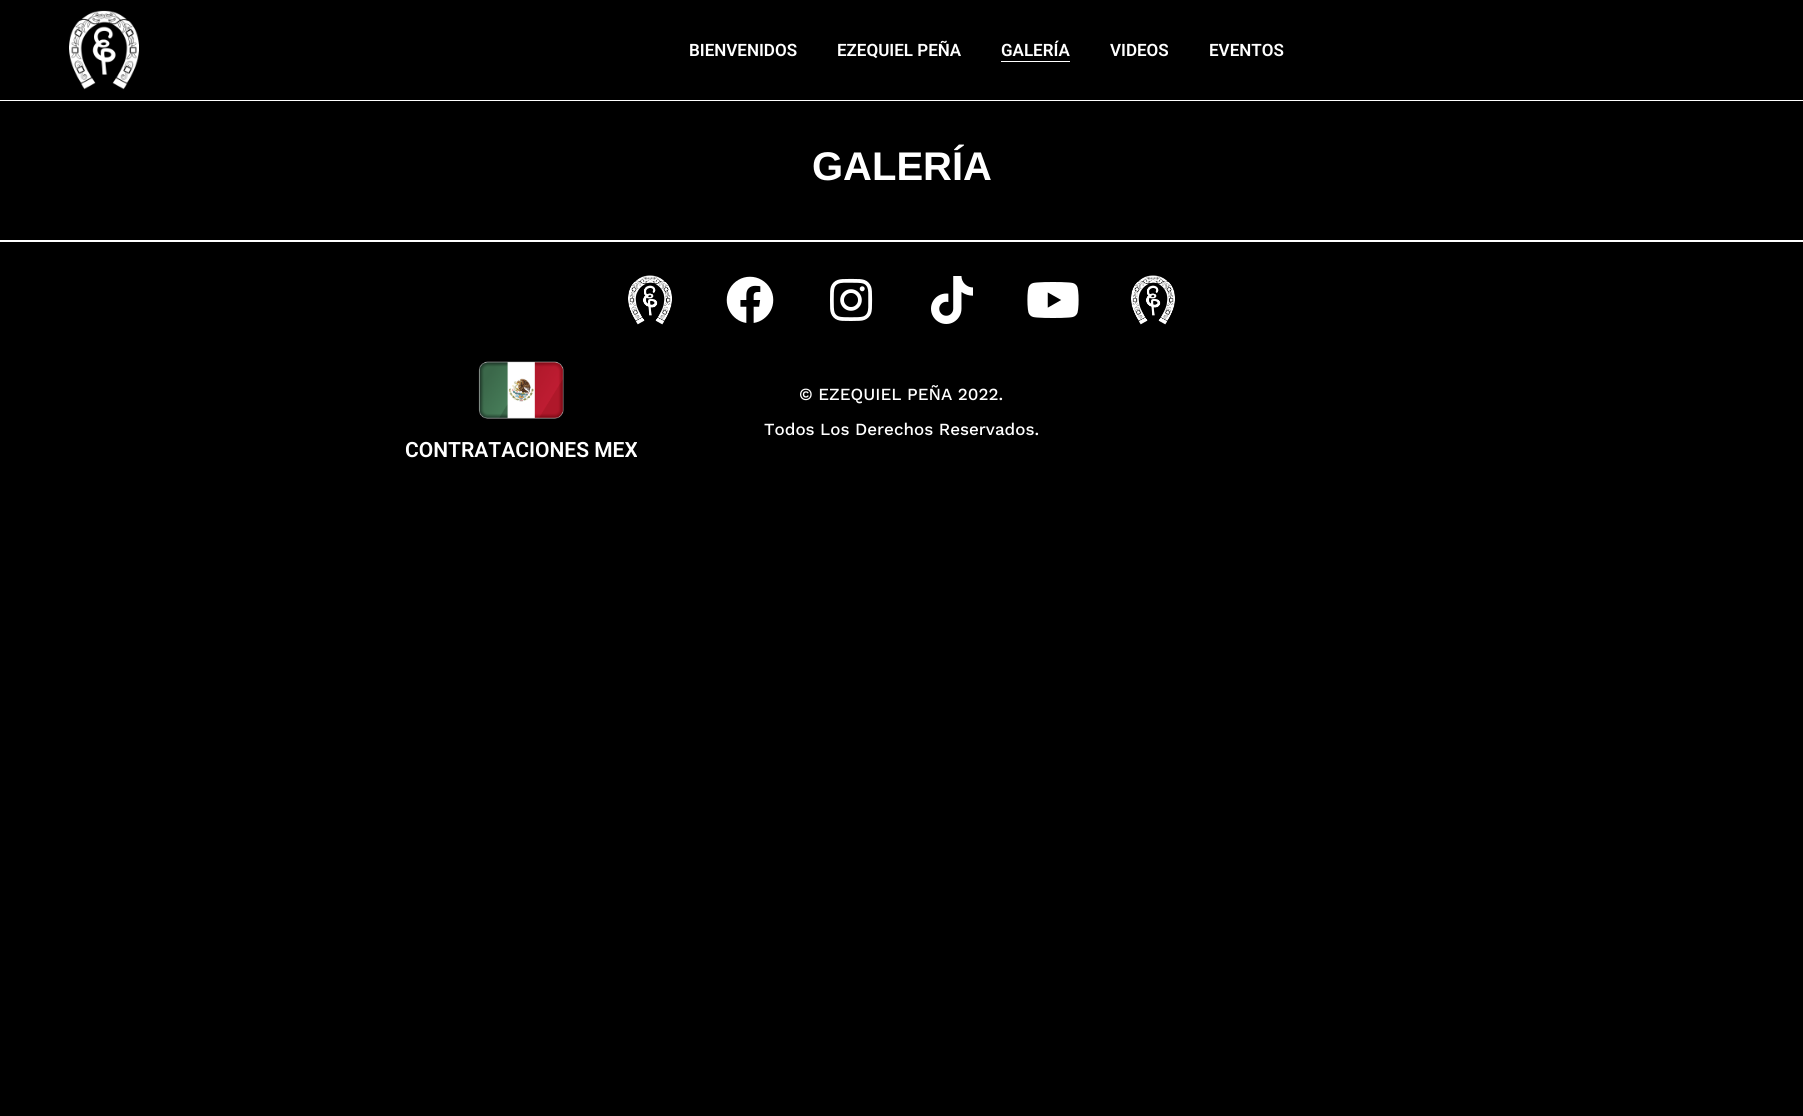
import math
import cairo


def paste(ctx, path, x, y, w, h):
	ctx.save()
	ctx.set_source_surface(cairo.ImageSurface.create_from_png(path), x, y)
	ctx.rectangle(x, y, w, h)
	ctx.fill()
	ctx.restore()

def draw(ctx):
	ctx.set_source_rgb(0, 0, 0)
	ctx.paint()
	ctx.set_source_rgb(1, 1, 1)
	ctx.rectangle(0, 100, 1803, 1)
	ctx.fill()
	paste(ctx, 'media/1.png', 69, 10, 70, 80)
	ctx.select_font_face('Roboto SemiBold')
	ctx.set_font_size(17)
	for x, y, s in [
		(689, 56, 'BIENVENIDOS'),
		(837, 56, 'EZEQUIEL PEÑA'),
		(1001, 56, 'GALERÍA'),
	]:
		ctx.move_to(x, y)
		ctx.show_text(s)
	ctx.rectangle(1001, 61, 69, 1)
	ctx.fill()
	ctx.move_to(1110, 56)
	ctx.show_text('VIDEOS')
	ctx.move_to(1209, 56)
	ctx.show_text('EVENTOS')
	ctx.select_font_face('Liberation Sans', cairo.FONT_SLANT_NORMAL, cairo.FONT_WEIGHT_BOLD)
	ctx.set_font_size(40)
	ctx.move_to(812, 180)
	ctx.show_text('GALERÍA')
	ctx.rectangle(0, 240, 1803, 2)
	ctx.fill()
	paste(ctx, 'media/2.png', 628, 275, 44, 50)
	paste(ctx, 'media/3.png', 726, 276, 48, 47)
	paste(ctx, 'media/4.png', 830, 278, 43, 43)
	paste(ctx, 'media/5.png', 931, 276, 42, 48)
	paste(ctx, 'media/6.png', 1027, 282, 52, 36)
	paste(ctx, 'media/7.png', 1131, 275, 44, 50)
	ctx.select_font_face('Work Sans Medium')
	ctx.set_font_size(17)
	ctx.move_to(799, 400)
	ctx.show_text('© EZEQUIEL PEÑA 2022.')
	ctx.move_to(764, 435)
	ctx.show_text('Todos Los Derechos Reservados.')
	paste(ctx, 'media/8.png', 478, 361, 86, 58)
	ctx.select_font_face('Roboto SemiBold')
	ctx.set_font_size(21)
	ctx.move_to(405, 457)
	ctx.show_text('CONTRATACIONES MEX')


surface = cairo.ImageSurface(cairo.FORMAT_RGB24, 1803, 1116)
ctx = cairo.Context(surface)
options = cairo.FontOptions()
options.set_hint_metrics(cairo.HINT_METRICS_OFF)
options.set_hint_style(cairo.HINT_STYLE_NONE)
ctx.set_font_options(options)
ctx.set_miter_limit(4)
draw(ctx)
surface.write_to_png('image.png')
